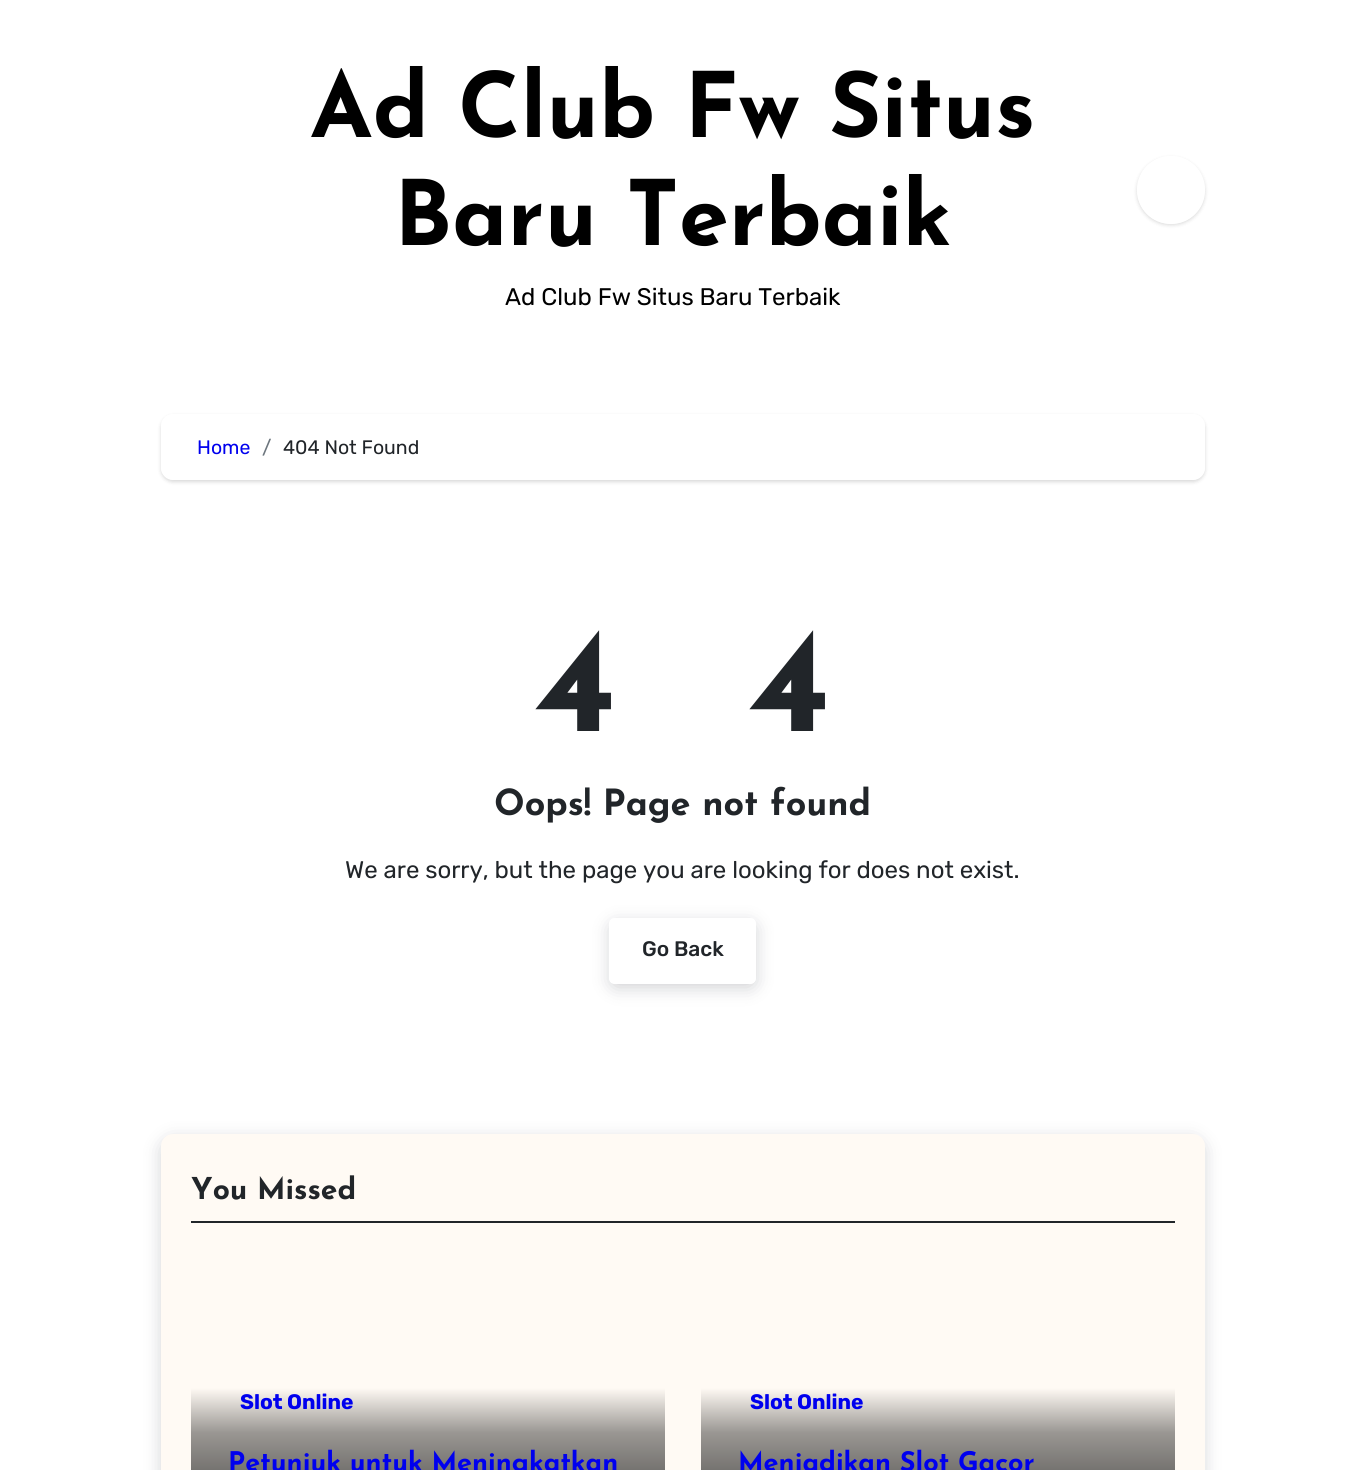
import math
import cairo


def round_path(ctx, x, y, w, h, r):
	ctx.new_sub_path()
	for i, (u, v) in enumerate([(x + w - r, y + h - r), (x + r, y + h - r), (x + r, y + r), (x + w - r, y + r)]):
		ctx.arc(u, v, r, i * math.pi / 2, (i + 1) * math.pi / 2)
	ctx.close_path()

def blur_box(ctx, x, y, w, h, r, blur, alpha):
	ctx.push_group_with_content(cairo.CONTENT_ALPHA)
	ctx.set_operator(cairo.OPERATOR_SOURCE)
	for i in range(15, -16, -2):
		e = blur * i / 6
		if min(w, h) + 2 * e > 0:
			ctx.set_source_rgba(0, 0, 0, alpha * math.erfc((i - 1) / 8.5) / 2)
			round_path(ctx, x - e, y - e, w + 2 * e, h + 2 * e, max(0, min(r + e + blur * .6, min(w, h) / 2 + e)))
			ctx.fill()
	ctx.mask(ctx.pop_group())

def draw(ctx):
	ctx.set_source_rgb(1, 1, 1)
	ctx.paint()
	ctx.select_font_face('Josefin Sans', cairo.FONT_SLANT_NORMAL, cairo.FONT_WEIGHT_BOLD)
	ctx.set_font_size(90)
	ctx.set_source_rgb(0, 0, 0)
	ctx.move_to(310, 137)
	ctx.show_text('Ad Club Fw Situs')
	ctx.move_to(394, 245)
	ctx.show_text('Baru Terbaik')
	ctx.select_font_face('Rubik Light')
	ctx.set_font_size(24)
	ctx.move_to(505, 305)
	ctx.show_text('Ad Club Fw Situs Baru Terbaik')
	ctx.save()
	ctx.set_fill_rule(cairo.FILL_RULE_EVEN_ODD)
	ctx.new_path()
	ctx.move_to(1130, 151)
	ctx.line_to(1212, 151)
	ctx.line_to(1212, 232)
	ctx.line_to(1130, 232)
	ctx.close_path()
	ctx.move_to(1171, 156)
	ctx.curve_to(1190, 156, 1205, 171, 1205, 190)
	ctx.curve_to(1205, 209, 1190, 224, 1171, 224)
	ctx.curve_to(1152, 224, 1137, 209, 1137, 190)
	ctx.curve_to(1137, 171, 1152, 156, 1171, 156)
	ctx.close_path()
	ctx.clip()
	ctx.set_source_rgb(0, 0, 0)
	blur_box(ctx, 1137, 158, 68, 67, 33.5, 2, 0.15)
	ctx.restore()
	ctx.save()
	ctx.set_fill_rule(cairo.FILL_RULE_EVEN_ODD)
	ctx.new_path()
	ctx.move_to(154, 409)
	ctx.line_to(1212, 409)
	ctx.line_to(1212, 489)
	ctx.line_to(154, 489)
	ctx.close_path()
	ctx.move_to(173, 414)
	ctx.line_to(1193, 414)
	ctx.curve_to(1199.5, 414, 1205, 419.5, 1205, 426)
	ctx.line_to(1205, 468)
	ctx.curve_to(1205, 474.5, 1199.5, 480, 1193, 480)
	ctx.line_to(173, 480)
	ctx.curve_to(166.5, 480, 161, 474.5, 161, 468)
	ctx.line_to(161, 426)
	ctx.curve_to(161, 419.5, 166.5, 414, 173, 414)
	ctx.close_path()
	ctx.clip()
	ctx.set_source_rgb(0, 0, 0)
	blur_box(ctx, 161, 416, 1044, 66, 12, 2, 0.15)
	ctx.restore()
	ctx.set_font_size(19.5)
	ctx.set_source_rgb(0, 0, 0.933)
	ctx.move_to(197, 454)
	ctx.show_text('Home')
	ctx.set_source_rgb(0.424, 0.459, 0.49)
	ctx.move_to(262, 454)
	ctx.show_text('/')
	ctx.set_source_rgb(0.129, 0.145, 0.161)
	ctx.move_to(283, 454)
	ctx.show_text('404 Not Found')
	ctx.select_font_face('Josefin Sans', cairo.FONT_SLANT_NORMAL, cairo.FONT_WEIGHT_BOLD)
	ctx.set_font_size(150)
	ctx.move_to(534, 731)
	ctx.show_text('4')
	ctx.move_to(748, 731)
	ctx.show_text('4')
	ctx.set_font_size(36)
	ctx.move_to(494, 815)
	ctx.show_text('Oops! Page not found')
	ctx.select_font_face('Rubik Light')
	ctx.set_font_size(24)
	ctx.move_to(345, 878)
	ctx.show_text('We are sorry, but the page you are looking for does not exist.')
	ctx.save()
	ctx.set_fill_rule(cairo.FILL_RULE_EVEN_ODD)
	ctx.new_path()
	ctx.move_to(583, 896)
	ctx.line_to(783, 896)
	ctx.line_to(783, 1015)
	ctx.line_to(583, 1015)
	ctx.close_path()
	ctx.move_to(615, 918)
	ctx.line_to(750, 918)
	ctx.curve_to(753.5, 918, 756, 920.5, 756, 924)
	ctx.line_to(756, 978)
	ctx.curve_to(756, 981.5, 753.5, 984, 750, 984)
	ctx.line_to(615, 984)
	ctx.curve_to(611.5, 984, 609, 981.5, 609, 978)
	ctx.line_to(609, 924)
	ctx.curve_to(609, 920.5, 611.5, 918, 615, 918)
	ctx.close_path()
	ctx.clip()
	ctx.set_source_rgb(0.027, 0.039, 0.098)
	blur_box(ctx, 611, 924, 144, 63, 5, 9, 0.2)
	ctx.restore()
	ctx.select_font_face('Rubik Medium')
	ctx.set_font_size(21)
	ctx.move_to(642, 956)
	ctx.show_text('Go Back')
	ctx.set_source_rgb(0.027, 0.039, 0.098)
	blur_box(ctx, 162, 1140, 1041, 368, 11, 9, 0.2)
	ctx.set_source_rgb(1, 0.98, 0.957)
	round_path(ctx, 161, 1134, 1044, 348, 12)
	ctx.fill()
	ctx.set_source_rgb(0.129, 0.145, 0.161)
	ctx.rectangle(191, 1221, 984, 2)
	ctx.fill()
	ctx.select_font_face('Josefin Sans', cairo.FONT_SLANT_NORMAL, cairo.FONT_WEIGHT_BOLD)
	ctx.set_font_size(30)
	ctx.move_to(191, 1199)
	ctx.show_text('You Missed')
	gradient = cairo.LinearGradient(428, 1253, 428, 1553)
	gradient.add_color_stop_rgba(0, 1, 0.98, 0.957, 1)
	gradient.add_color_stop_rgba(0.45, 1, 0.98, 0.957, 1)
	gradient.add_color_stop_rgba(0.6, 0.6, 0.588, 0.573, 1)
	gradient.add_color_stop_rgba(1, 0.149, 0.149, 0.145, 1)
	ctx.set_source(gradient)
	round_path(ctx, 191, 1253, 474, 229, 12)
	ctx.fill()
	ctx.select_font_face('Rubik', cairo.FONT_SLANT_NORMAL, cairo.FONT_WEIGHT_BOLD)
	ctx.set_font_size(21)
	ctx.set_source_rgb(0, 0, 0.933)
	ctx.move_to(240, 1409)
	ctx.show_text('Slot Online')
	ctx.select_font_face('Josefin Sans', cairo.FONT_SLANT_NORMAL, cairo.FONT_WEIGHT_BOLD)
	ctx.set_font_size(27)
	ctx.move_to(228, 1471)
	ctx.show_text('Petunjuk untuk Meningkatkan')
	gradient = cairo.LinearGradient(938, 1253, 938, 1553)
	gradient.add_color_stop_rgba(0, 1, 0.98, 0.957, 1)
	gradient.add_color_stop_rgba(0.45, 1, 0.98, 0.957, 1)
	gradient.add_color_stop_rgba(0.6, 0.6, 0.588, 0.573, 1)
	gradient.add_color_stop_rgba(1, 0.149, 0.149, 0.145, 1)
	ctx.set_source(gradient)
	round_path(ctx, 701, 1253, 474, 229, 12)
	ctx.fill()
	ctx.select_font_face('Rubik', cairo.FONT_SLANT_NORMAL, cairo.FONT_WEIGHT_BOLD)
	ctx.set_font_size(21)
	ctx.set_source_rgb(0, 0, 0.933)
	ctx.move_to(750, 1409)
	ctx.show_text('Slot Online')
	ctx.select_font_face('Josefin Sans', cairo.FONT_SLANT_NORMAL, cairo.FONT_WEIGHT_BOLD)
	ctx.set_font_size(27)
	ctx.move_to(738, 1471)
	ctx.show_text('Menjadikan Slot Gacor')


surface = cairo.ImageSurface(cairo.FORMAT_RGB24, 1364, 1470)
ctx = cairo.Context(surface)
options = cairo.FontOptions()
options.set_hint_metrics(cairo.HINT_METRICS_OFF)
options.set_hint_style(cairo.HINT_STYLE_NONE)
ctx.set_font_options(options)
ctx.set_miter_limit(4)
draw(ctx)
surface.write_to_png('image.png')
